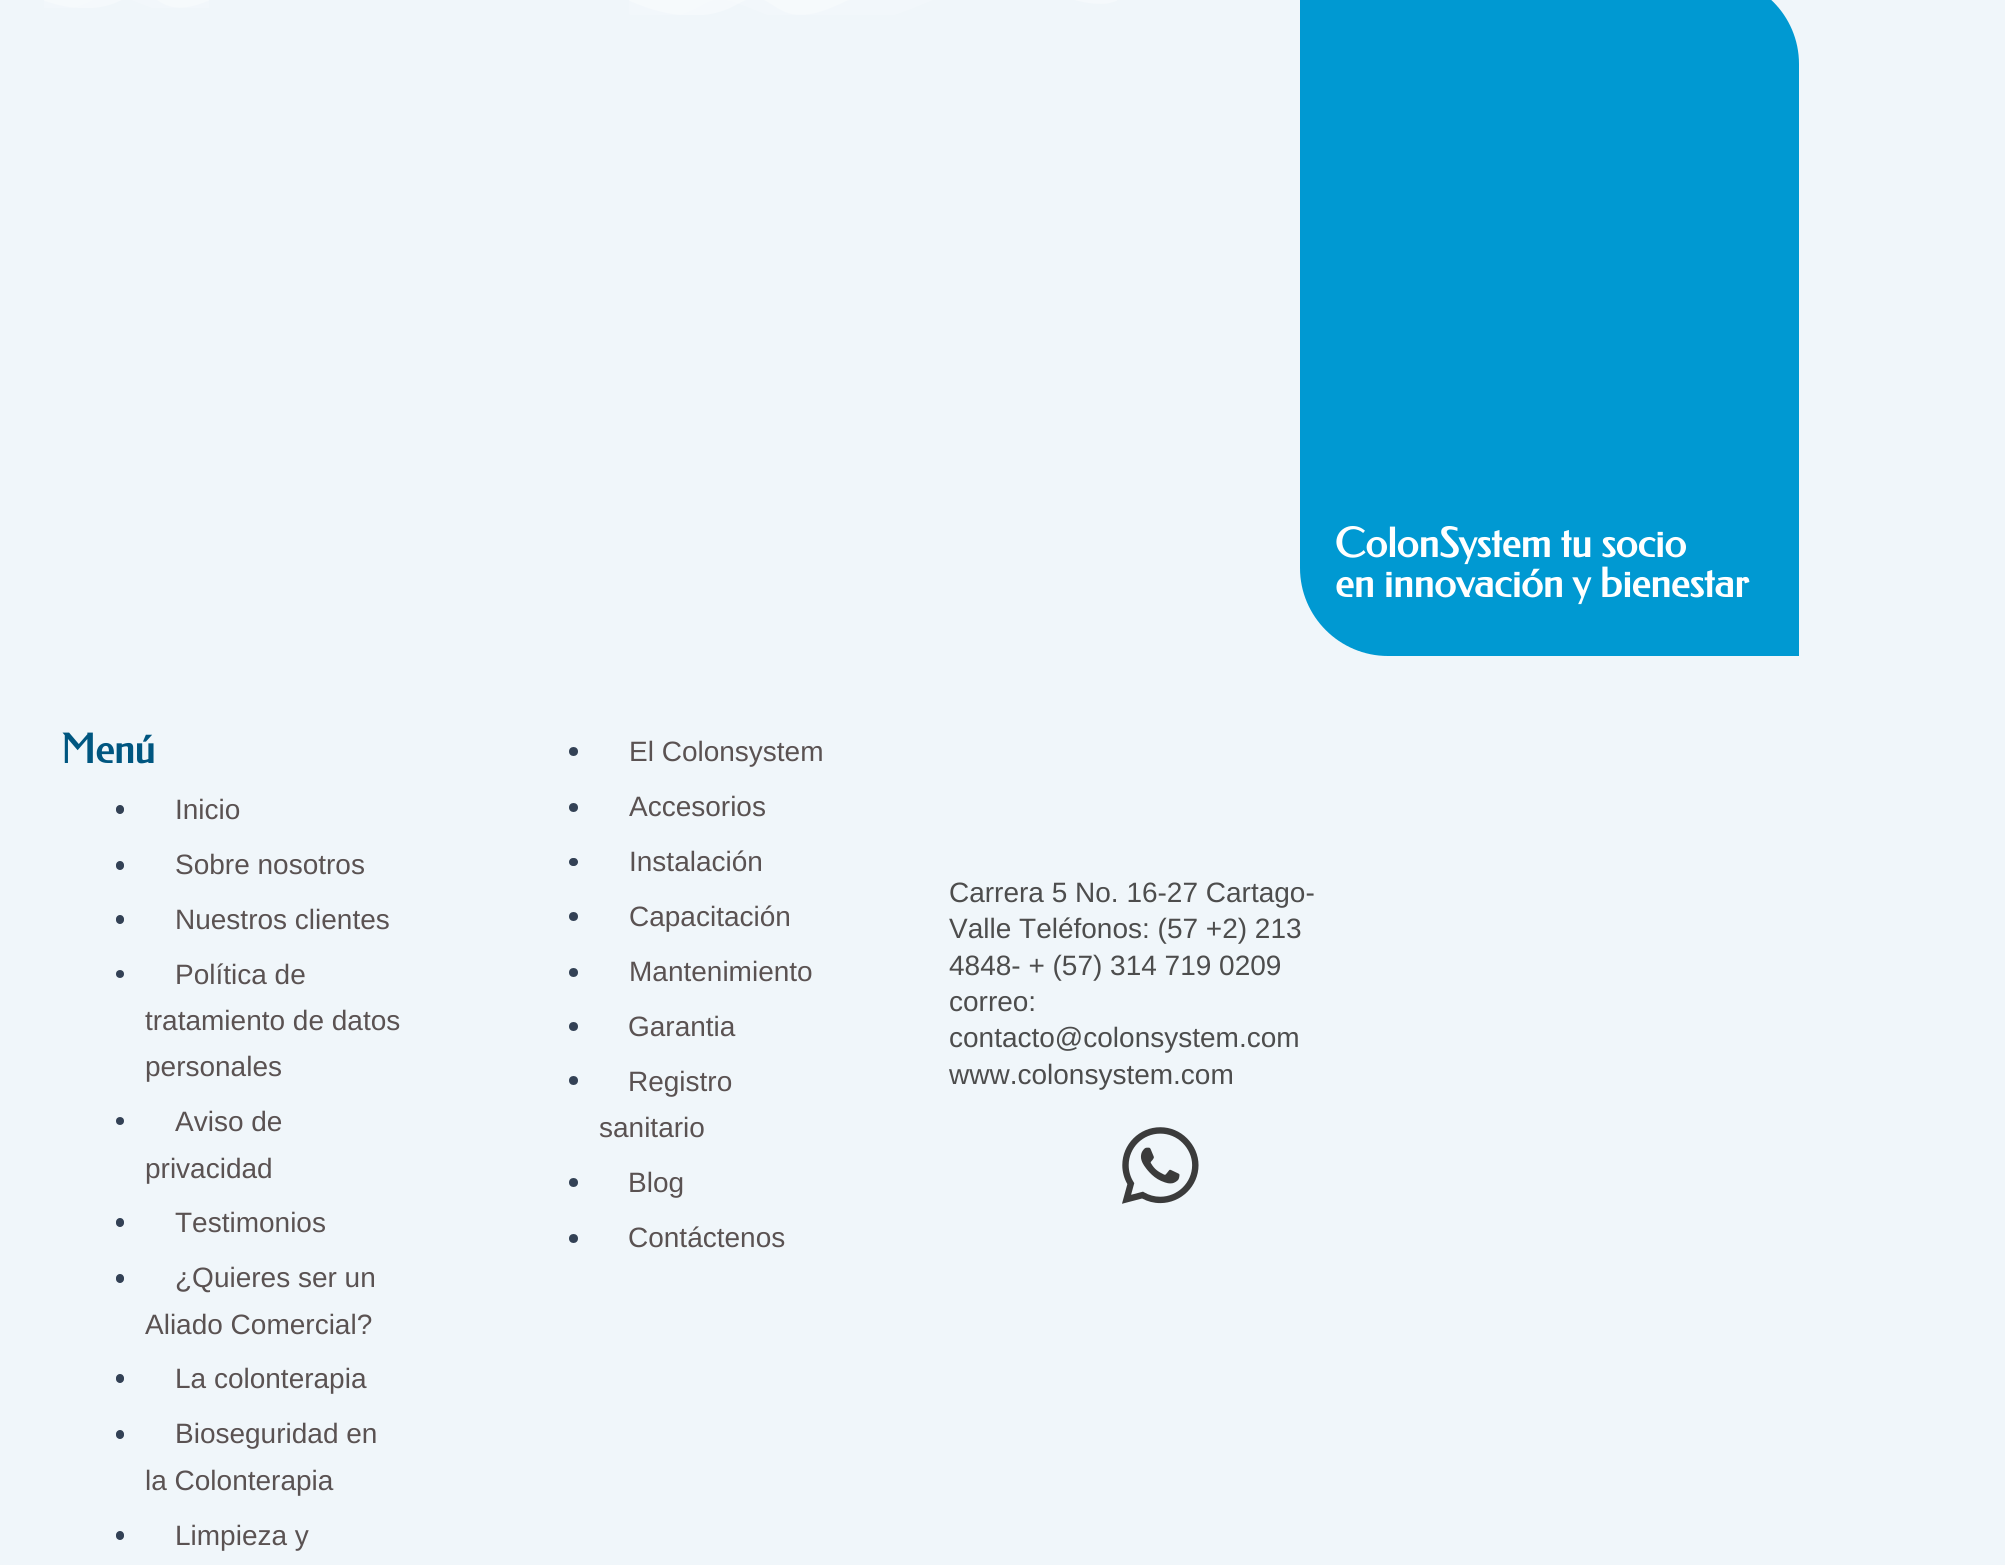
import math
import cairo


def round_path(ctx, x, y, w, h, r):
	ctx.new_sub_path()
	for i, (u, v) in enumerate([(x + w - r, y + h - r), (x + r, y + h - r), (x + r, y + r), (x + w - r, y + r)]):
		ctx.arc(u, v, r, i * math.pi / 2, (i + 1) * math.pi / 2)
	ctx.close_path()

def paste(ctx, path, x, y, w, h):
	ctx.save()
	ctx.set_source_surface(cairo.ImageSurface.create_from_png(path), x, y)
	ctx.rectangle(x, y, w, h)
	ctx.fill()
	ctx.restore()

def draw(ctx):
	ctx.set_source_rgb(0.941, 0.961, 0.98)
	ctx.paint()
	paste(ctx, 'media/1.png', 44, 0, 165, 8)
	paste(ctx, 'media/2.png', 629, 0, 488, 15)
	ctx.set_source_rgb(0, 0.6, 0.824)
	ctx.new_path()
	ctx.move_to(1300, -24)
	ctx.line_to(1711, -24)
	ctx.curve_to(1759.5, -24, 1799, 15.5, 1799, 64)
	ctx.line_to(1799, 656)
	ctx.line_to(1388, 656)
	ctx.curve_to(1339.5, 656, 1300, 616.5, 1300, 568)
	ctx.close_path()
	ctx.fill()
	ctx.select_font_face('Federo', cairo.FONT_SLANT_NORMAL, cairo.FONT_WEIGHT_BOLD)
	ctx.set_font_size(40.25)
	ctx.set_source_rgb(1, 1, 1)
	ctx.move_to(1335, 557)
	ctx.show_text('ColonSystem tu socio')
	ctx.move_to(1335, 597)
	ctx.show_text('en innovación y bienestar')
	ctx.set_source_rgb(0, 0.337, 0.502)
	ctx.move_to(61, 763)
	ctx.show_text('Menú')
	ctx.set_source_rgb(0.2, 0.255, 0.333)
	round_path(ctx, 116, 805, 8, 9, 4)
	ctx.fill()
	ctx.select_font_face('Liberation Sans')
	ctx.set_font_size(28)
	ctx.set_source_rgb(0.353, 0.322, 0.322)
	ctx.move_to(175, 819)
	ctx.show_text('Inicio')
	ctx.set_source_rgb(0.2, 0.255, 0.333)
	round_path(ctx, 116, 861, 8, 9, 4)
	ctx.fill()
	ctx.set_source_rgb(0.353, 0.322, 0.322)
	ctx.move_to(175, 874)
	ctx.show_text('Sobre nosotros')
	ctx.set_source_rgb(0.2, 0.255, 0.333)
	round_path(ctx, 116, 915, 8, 9, 4)
	ctx.fill()
	ctx.set_source_rgb(0.353, 0.322, 0.322)
	ctx.move_to(175, 929)
	ctx.show_text('Nuestros clientes')
	ctx.set_source_rgb(0.2, 0.255, 0.333)
	ctx.new_path()
	ctx.arc(120, 974, 4, 0, 2 * math.pi)
	ctx.fill()
	ctx.set_source_rgb(0.353, 0.322, 0.322)
	for x, y, s in [
		(175, 984, 'Política de'),
		(145, 1030, 'tratamiento de datos'),
		(145, 1076, 'personales'),
	]:
		ctx.move_to(x, y)
		ctx.show_text(s)
	ctx.set_source_rgb(0.2, 0.255, 0.333)
	ctx.new_path()
	ctx.arc(120, 1121, 4, 0, 2 * math.pi)
	ctx.fill()
	ctx.set_source_rgb(0.353, 0.322, 0.322)
	ctx.move_to(175, 1131)
	ctx.show_text('Aviso de')
	ctx.move_to(145, 1178)
	ctx.show_text('privacidad')
	ctx.set_source_rgb(0.2, 0.255, 0.333)
	round_path(ctx, 116, 1218, 8, 9, 4)
	ctx.fill()
	ctx.set_source_rgb(0.353, 0.322, 0.322)
	ctx.move_to(175, 1232)
	ctx.show_text('Testimonios')
	ctx.set_source_rgb(0.2, 0.255, 0.333)
	round_path(ctx, 116, 1274, 8, 9, 4)
	ctx.fill()
	ctx.set_source_rgb(0.353, 0.322, 0.322)
	ctx.move_to(175, 1287)
	ctx.show_text('¿Quieres ser un')
	ctx.move_to(145, 1334)
	ctx.show_text('Aliado Comercial?')
	ctx.set_source_rgb(0.2, 0.255, 0.333)
	round_path(ctx, 116, 1374, 8, 9, 4)
	ctx.fill()
	ctx.set_source_rgb(0.353, 0.322, 0.322)
	ctx.move_to(175, 1388)
	ctx.show_text('La colonterapia')
	ctx.set_source_rgb(0.2, 0.255, 0.333)
	round_path(ctx, 116, 1430, 8, 9, 4)
	ctx.fill()
	ctx.set_source_rgb(0.353, 0.322, 0.322)
	ctx.move_to(175, 1443)
	ctx.show_text('Bioseguridad en')
	ctx.move_to(145, 1490)
	ctx.show_text('la Colonterapia')
	ctx.set_source_rgb(0.2, 0.255, 0.333)
	round_path(ctx, 116, 1531, 8, 9, 4)
	ctx.fill()
	ctx.set_source_rgb(0.353, 0.322, 0.322)
	ctx.move_to(175, 1545)
	ctx.show_text('Limpieza y')
	ctx.set_source_rgb(0.2, 0.255, 0.333)
	ctx.new_path()
	ctx.arc(573.5, 751.5, 4.5, 0, 2 * math.pi)
	ctx.fill()
	ctx.set_source_rgb(0.353, 0.322, 0.322)
	ctx.move_to(629, 761)
	ctx.show_text('El Colonsystem')
	ctx.set_source_rgb(0.2, 0.255, 0.333)
	ctx.new_path()
	ctx.arc(573.5, 807.5, 4.5, 0, 2 * math.pi)
	ctx.fill()
	ctx.set_source_rgb(0.353, 0.322, 0.322)
	ctx.move_to(629, 816)
	ctx.show_text('Accesorios')
	ctx.set_source_rgb(0.2, 0.255, 0.333)
	round_path(ctx, 569, 858, 9, 8, 4)
	ctx.fill()
	ctx.set_source_rgb(0.353, 0.322, 0.322)
	ctx.move_to(629, 871)
	ctx.show_text('Instalación')
	ctx.set_source_rgb(0.2, 0.255, 0.333)
	ctx.new_path()
	ctx.arc(573.5, 916.5, 4.5, 0, 2 * math.pi)
	ctx.fill()
	ctx.set_source_rgb(0.353, 0.322, 0.322)
	ctx.move_to(629, 926)
	ctx.show_text('Capacitación')
	ctx.set_source_rgb(0.2, 0.255, 0.333)
	ctx.new_path()
	ctx.arc(573.5, 972.5, 4.5, 0, 2 * math.pi)
	ctx.fill()
	ctx.set_source_rgb(0.353, 0.322, 0.322)
	ctx.move_to(629, 981)
	ctx.show_text('Mantenimiento')
	ctx.set_source_rgb(0.2, 0.255, 0.333)
	ctx.new_path()
	ctx.arc(573.5, 1026.5, 4.5, 0, 2 * math.pi)
	ctx.fill()
	ctx.set_source_rgb(0.353, 0.322, 0.322)
	ctx.move_to(628, 1036)
	ctx.show_text('Garantia')
	ctx.set_source_rgb(0.2, 0.255, 0.333)
	ctx.new_path()
	ctx.arc(573.5, 1080.5, 4.5, 0, 2 * math.pi)
	ctx.fill()
	ctx.set_source_rgb(0.353, 0.322, 0.322)
	ctx.move_to(628, 1091)
	ctx.show_text('Registro')
	ctx.move_to(599, 1137)
	ctx.show_text('sanitario')
	ctx.set_source_rgb(0.2, 0.255, 0.333)
	ctx.new_path()
	ctx.arc(573.5, 1182.5, 4.5, 0, 2 * math.pi)
	ctx.fill()
	ctx.set_source_rgb(0.353, 0.322, 0.322)
	ctx.move_to(628, 1192)
	ctx.show_text('Blog')
	ctx.set_source_rgb(0.2, 0.255, 0.333)
	ctx.new_path()
	ctx.arc(573.5, 1238.5, 4.5, 0, 2 * math.pi)
	ctx.fill()
	ctx.set_source_rgb(0.353, 0.322, 0.322)
	ctx.move_to(628, 1247)
	ctx.show_text('Contáctenos')
	ctx.set_source_rgb(0.302, 0.302, 0.302)
	for x, y, s in [
		(949, 902, 'Carrera 5 No. 16-27 Cartago-'),
		(949, 938, 'Valle Teléfonos: (57 +2) 213'),
		(949, 975, '4848- + (57) 314 719 0209'),
		(949, 1011, 'correo:'),
		(949, 1047, 'contacto@colonsystem.com'),
		(949, 1084, 'www.colonsystem.com'),
	]:
		ctx.move_to(x, y)
		ctx.show_text(s)
	paste(ctx, 'media/3.png', 1122, 1127, 77, 77)


surface = cairo.ImageSurface(cairo.FORMAT_RGB24, 2005, 1565)
ctx = cairo.Context(surface)
options = cairo.FontOptions()
options.set_hint_metrics(cairo.HINT_METRICS_OFF)
options.set_hint_style(cairo.HINT_STYLE_NONE)
ctx.set_font_options(options)
ctx.set_miter_limit(4)
draw(ctx)
surface.write_to_png('image.png')
